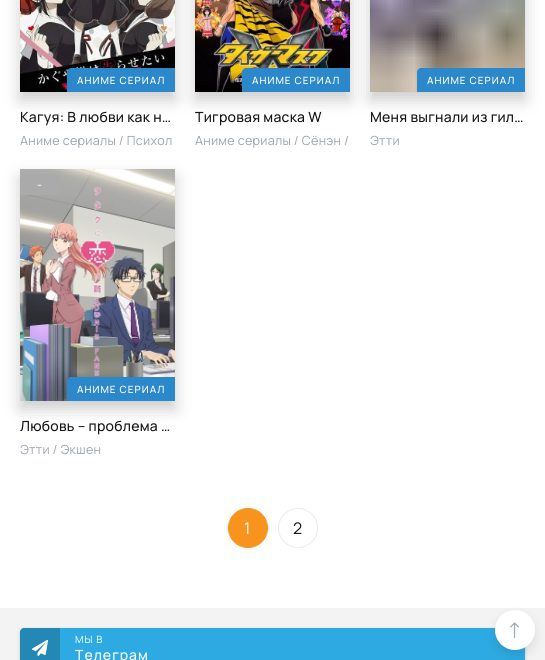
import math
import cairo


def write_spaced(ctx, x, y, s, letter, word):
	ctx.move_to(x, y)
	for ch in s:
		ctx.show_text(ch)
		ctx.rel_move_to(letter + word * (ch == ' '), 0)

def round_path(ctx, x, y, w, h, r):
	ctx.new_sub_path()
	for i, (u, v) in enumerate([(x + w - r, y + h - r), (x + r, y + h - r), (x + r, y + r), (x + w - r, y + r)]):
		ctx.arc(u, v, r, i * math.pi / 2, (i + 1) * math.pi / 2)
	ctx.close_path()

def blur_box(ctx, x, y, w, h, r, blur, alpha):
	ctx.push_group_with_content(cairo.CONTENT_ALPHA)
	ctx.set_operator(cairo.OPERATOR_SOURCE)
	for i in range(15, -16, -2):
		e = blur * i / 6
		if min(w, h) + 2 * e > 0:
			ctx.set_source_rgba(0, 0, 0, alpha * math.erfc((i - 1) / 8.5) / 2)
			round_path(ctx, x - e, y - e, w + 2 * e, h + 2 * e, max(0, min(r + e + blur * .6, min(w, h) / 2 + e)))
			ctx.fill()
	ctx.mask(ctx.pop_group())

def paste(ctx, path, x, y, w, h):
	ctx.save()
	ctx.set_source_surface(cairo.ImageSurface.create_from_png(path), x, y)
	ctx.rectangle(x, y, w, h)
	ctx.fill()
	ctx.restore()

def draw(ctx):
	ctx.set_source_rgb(1, 1, 1)
	ctx.paint()
	ctx.set_source_rgb(0, 0, 0)
	blur_box(ctx, 20, -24, 155, 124, 0, 8, 0.2)
	paste(ctx, 'media/1.png', 20, 0, 155, 92)
	blur_box(ctx, 195, -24, 155, 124, 0, 8, 0.2)
	ctx.set_source_rgb(0.169, 0.533, 0.792)
	ctx.new_path()
	ctx.move_to(71, 68)
	ctx.line_to(175, 68)
	ctx.line_to(175, 92)
	ctx.line_to(67, 92)
	ctx.line_to(67, 72)
	ctx.curve_to(67, 70, 69, 68, 71, 68)
	ctx.close_path()
	ctx.fill()
	ctx.select_font_face('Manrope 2 ExtraLight')
	ctx.set_font_size(10)
	ctx.set_source_rgb(1, 1, 1)
	write_spaced(ctx, 77, 84, 'АНИМЕ СЕРИАЛ', 1, 0)
	ctx.set_font_size(14)
	ctx.set_source_rgb(0.086, 0.086, 0.086)
	write_spaced(ctx, 20, 122, 'Кагуя: В любви как н…', 0.25, 0)
	ctx.select_font_face('Manrope ExtraLight')
	ctx.set_font_size(12.6)
	ctx.set_source_rgb(0.616, 0.647, 0.694)
	write_spaced(ctx, 20, 145, 'Аниме сериалы / Психол', 0.25, 0)
	paste(ctx, 'media/2.png', 195, 0, 155, 92)
	ctx.set_source_rgb(0, 0, 0)
	blur_box(ctx, 370, -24, 155, 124, 0, 8, 0.2)
	ctx.set_source_rgb(0.169, 0.533, 0.792)
	ctx.new_path()
	ctx.move_to(246, 68)
	ctx.line_to(350, 68)
	ctx.line_to(350, 92)
	ctx.line_to(242, 92)
	ctx.line_to(242, 72)
	ctx.curve_to(242, 70, 244, 68, 246, 68)
	ctx.close_path()
	ctx.fill()
	ctx.select_font_face('Manrope 2 ExtraLight')
	ctx.set_font_size(10)
	ctx.set_source_rgb(1, 1, 1)
	write_spaced(ctx, 252, 84, 'АНИМЕ СЕРИАЛ', 1, 0)
	ctx.set_font_size(14)
	ctx.set_source_rgb(0.086, 0.086, 0.086)
	write_spaced(ctx, 195, 122, 'Тигровая маска W', 0.25, 0)
	ctx.select_font_face('Manrope ExtraLight')
	ctx.set_font_size(12.6)
	ctx.set_source_rgb(0.616, 0.647, 0.694)
	write_spaced(ctx, 195, 145, 'Аниме сериалы / Сёнэн /', 0.25, 0)
	paste(ctx, 'media/3.png', 370, 0, 155, 92)
	ctx.set_source_rgb(0.169, 0.533, 0.792)
	ctx.new_path()
	ctx.move_to(421, 68)
	ctx.line_to(525, 68)
	ctx.line_to(525, 92)
	ctx.line_to(417, 92)
	ctx.line_to(417, 72)
	ctx.curve_to(417, 70, 419, 68, 421, 68)
	ctx.close_path()
	ctx.fill()
	ctx.select_font_face('Manrope 2 ExtraLight')
	ctx.set_font_size(10)
	ctx.set_source_rgb(1, 1, 1)
	write_spaced(ctx, 427, 84, 'АНИМЕ СЕРИАЛ', 1, 0)
	ctx.set_font_size(14)
	ctx.set_source_rgb(0.086, 0.086, 0.086)
	write_spaced(ctx, 370, 122, 'Меня выгнали из гил…', 0.25, 0)
	ctx.select_font_face('Manrope ExtraLight')
	ctx.set_font_size(12.6)
	ctx.set_source_rgb(0.616, 0.647, 0.694)
	write_spaced(ctx, 370, 145, 'Этти', 0.25, 0)
	ctx.set_source_rgb(0, 0, 0)
	blur_box(ctx, 20, 177, 155, 232, 0, 8, 0.2)
	paste(ctx, 'media/4.png', 20, 169, 155, 232)
	ctx.set_source_rgb(0.667, 0.667, 0.667)
	ctx.new_path()
	ctx.move_to(20, 174)
	ctx.line_to(56, 174)
	ctx.curve_to(58, 174, 60, 176, 60, 178)
	ctx.line_to(60, 191)
	ctx.curve_to(60, 193, 58, 195, 56, 195)
	ctx.line_to(20, 195)
	ctx.close_path()
	ctx.fill()
	ctx.select_font_face('Manrope 2 ExtraLight')
	ctx.set_font_size(12)
	ctx.set_source_rgb(1, 1, 1)
	write_spaced(ctx, 37, 189, '-', 0.25, 0)
	ctx.set_source_rgb(0.169, 0.533, 0.792)
	ctx.new_path()
	ctx.move_to(71, 377)
	ctx.line_to(175, 377)
	ctx.line_to(175, 401)
	ctx.line_to(67, 401)
	ctx.line_to(67, 381)
	ctx.curve_to(67, 379, 69, 377, 71, 377)
	ctx.close_path()
	ctx.fill()
	ctx.set_font_size(10)
	ctx.set_source_rgb(1, 1, 1)
	write_spaced(ctx, 77, 393, 'АНИМЕ СЕРИАЛ', 1, 0)
	ctx.set_font_size(14)
	ctx.set_source_rgb(0.086, 0.086, 0.086)
	write_spaced(ctx, 20, 431, 'Любовь – проблема …', 0.25, 0)
	ctx.select_font_face('Manrope ExtraLight')
	ctx.set_font_size(12.6)
	ctx.set_source_rgb(0.616, 0.647, 0.694)
	write_spaced(ctx, 20, 454, 'Этти / Экшен', 0.25, 0)
	ctx.set_source_rgb(0.969, 0.58, 0.118)
	ctx.new_path()
	ctx.arc(248, 528, 19.5, 0, 2 * math.pi)
	ctx.fill_preserve()
	ctx.set_line_width(1)
	ctx.stroke()
	ctx.set_font_size(16)
	ctx.set_source_rgb(1, 1, 1)
	write_spaced(ctx, 244, 534, '1', 0.25, 0)
	ctx.new_path()
	ctx.arc(298, 528, 19.5, 0, 2 * math.pi)
	ctx.set_source_rgb(0.918, 0.918, 0.918)
	ctx.stroke()
	ctx.set_source_rgb(0.086, 0.086, 0.086)
	write_spaced(ctx, 293, 534, '2', 0.25, 0)
	ctx.set_source_rgb(0.953, 0.953, 0.953)
	ctx.rectangle(0, 608, 545, 52)
	ctx.fill()
	ctx.set_source_rgb(0, 0, 0)
	blur_box(ctx, 20, 629, 505, 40, 4, 1.5, 0.2)
	ctx.set_source_rgb(0.176, 0.667, 0.882)
	round_path(ctx, 20, 628, 505, 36, 4)
	ctx.fill()
	ctx.set_source_rgba(0, 0, 0, 0.2)
	ctx.new_path()
	ctx.move_to(24, 628)
	ctx.line_to(60, 628)
	ctx.line_to(60, 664)
	ctx.line_to(24, 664)
	ctx.curve_to(22, 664, 20, 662, 20, 660)
	ctx.line_to(20, 632)
	ctx.curve_to(20, 630, 22, 628, 24, 628)
	ctx.close_path()
	ctx.fill()
	paste(ctx, 'media/5.png', 32, 640, 16, 16)
	ctx.set_font_size(10)
	ctx.set_source_rgb(1, 1, 1)
	write_spaced(ctx, 75, 643, 'МЫ В', 1, 0)
	ctx.select_font_face('Manrope 2 ExtraLight')
	ctx.set_font_size(14)
	write_spaced(ctx, 75, 660, 'Телеграм', 1, 0)
	ctx.set_source_rgb(0, 0, 0)
	blur_box(ctx, 495, 615, 40, 40, 20, 5, 0.1)
	ctx.set_source_rgb(1, 1, 1)
	ctx.arc(515, 630, 20, 0, 2 * math.pi)
	ctx.fill()
	paste(ctx, 'media/6.png', 510, 622, 9, 17)


surface = cairo.ImageSurface(cairo.FORMAT_RGB24, 545, 660)
ctx = cairo.Context(surface)
options = cairo.FontOptions()
options.set_hint_metrics(cairo.HINT_METRICS_OFF)
options.set_hint_style(cairo.HINT_STYLE_NONE)
ctx.set_font_options(options)
ctx.set_miter_limit(4)
draw(ctx)
surface.write_to_png('image.png')
